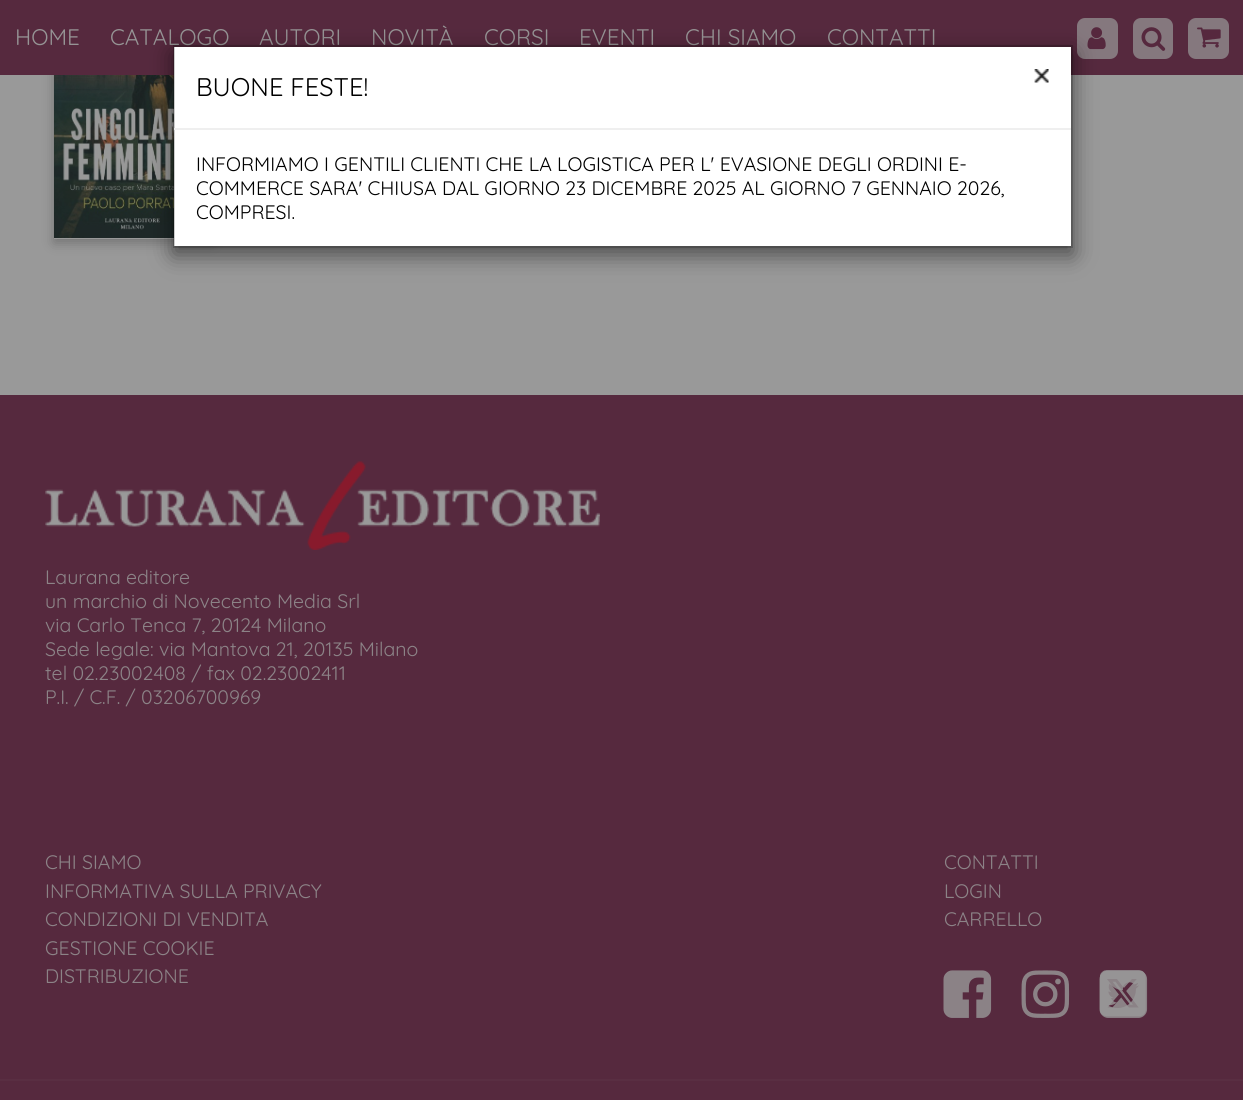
import math
import cairo


def round_path(ctx, x, y, w, h, r):
	ctx.new_sub_path()
	for i, (u, v) in enumerate([(x + w - r, y + h - r), (x + r, y + h - r), (x + r, y + r), (x + w - r, y + r)]):
		ctx.arc(u, v, r, i * math.pi / 2, (i + 1) * math.pi / 2)
	ctx.close_path()

def blur_box(ctx, x, y, w, h, r, blur, alpha):
	ctx.push_group_with_content(cairo.CONTENT_ALPHA)
	ctx.set_operator(cairo.OPERATOR_SOURCE)
	for i in range(15, -16, -2):
		e = blur * i / 6
		if min(w, h) + 2 * e > 0:
			ctx.set_source_rgba(0, 0, 0, alpha * math.erfc((i - 1) / 8.5) / 2)
			round_path(ctx, x - e, y - e, w + 2 * e, h + 2 * e, max(0, min(r + e + blur * .6, min(w, h) / 2 + e)))
			ctx.fill()
	ctx.mask(ctx.pop_group())

def paste(ctx, path, x, y, w, h):
	ctx.save()
	ctx.set_source_surface(cairo.ImageSurface.create_from_png(path), x, y)
	ctx.rectangle(x, y, w, h)
	ctx.fill()
	ctx.restore()

def draw(ctx):
	ctx.set_source_rgb(0.6, 0.6, 0.6)
	ctx.paint()
	ctx.set_source_rgb(0.102, 0.102, 0.102)
	blur_box(ctx, 54, 8, 158, 235, 0, 6, 0.3)
	ctx.set_source_rgb(0.6, 0.6, 0.6)
	ctx.rectangle(54, 238, 120, 1)
	ctx.fill()
	paste(ctx, 'media/1.png', 54, 75, 120, 163)
	ctx.set_source_rgb(0.337, 0.161, 0.243)
	ctx.rectangle(0, 0, 1243, 75)
	ctx.fill()
	ctx.select_font_face('Quicksand')
	ctx.set_font_size(22.5)
	ctx.set_source_rgb(0.588, 0.58, 0.584)
	for x, y, s in [
		(15, 45, 'HOME'),
		(110, 45, 'CATALOGO'),
		(259, 45, 'AUTORI'),
		(371, 45, 'NOVITÀ'),
		(484, 45, 'CORSI'),
		(579, 45, 'EVENTI'),
		(685, 45, 'CHI SIAMO'),
		(827, 45, 'CONTATTI'),
	]:
		ctx.move_to(x, y)
		ctx.show_text(s)
	ctx.set_source_rgb(0.522, 0.471, 0.494)
	round_path(ctx, 1077, 18, 41, 41, 8)
	ctx.fill()
	paste(ctx, 'media/2.png', 1087, 27, 19, 23)
	round_path(ctx, 1133, 18, 40, 41, 8)
	ctx.fill()
	paste(ctx, 'media/3.png', 1141, 27, 25, 24)
	round_path(ctx, 1188, 18, 41, 41, 8)
	ctx.fill()
	paste(ctx, 'media/4.png', 1197, 27, 24, 21)
	ctx.set_source_rgb(0.337, 0.161, 0.243)
	ctx.rectangle(0, 395, 1243, 705)
	ctx.fill()
	paste(ctx, 'media/5.png', 45, 461, 555, 89)
	ctx.set_font_size(19.5)
	ctx.set_source_rgb(0.549, 0.514, 0.529)
	for x, y, s in [
		(45, 584, 'Laurana editore'),
		(45, 608, 'un marchio di Novecento Media Srl'),
		(45, 632, 'via Carlo Tenca 7, 20124 Milano'),
		(45, 656, 'Sede legale: via Mantova 21, 20135 Milano'),
		(45, 680, 'tel 02.23002408 / fax 02.23002411'),
		(45, 704, 'P.I. / C.F. / 03206700969'),
		(45, 869, 'CHI SIAMO'),
		(45, 898, 'INFORMATIVA SULLA PRIVACY'),
		(45, 926, 'CONDIZIONI DI VENDITA'),
		(45, 955, 'GESTIONE COOKIE'),
		(45, 983, 'DISTRIBUZIONE'),
		(944, 869, 'CONTATTI'),
		(944, 898, 'LOGIN'),
		(944, 926, 'CARRELLO'),
	]:
		ctx.move_to(x, y)
		ctx.show_text(s)
	paste(ctx, 'media/6.png', 943, 970, 49, 48)
	paste(ctx, 'media/7.png', 1021, 970, 49, 48)
	paste(ctx, 'media/9.png', 1100, 970, 46, 47)
	paste(ctx, 'media/8.png', 1099, 970, 49, 48)
	ctx.set_source_rgb(0.349, 0.18, 0.259)
	ctx.rectangle(0, 1079, 1243, 2)
	ctx.fill()
	ctx.set_source_rgb(0, 0, 0)
	blur_box(ctx, 173, 53, 900, 202, 0, 11, 0.5)
	ctx.set_source_rgb(1, 1, 1)
	ctx.rectangle(174, 47, 897, 199)
	ctx.fill()
	ctx.rectangle(174, 46, 898, 201)
	ctx.set_source_rgba(0, 0, 0, 0.2)
	ctx.stroke()
	ctx.set_source_rgb(0.937, 0.937, 0.937)
	ctx.rectangle(174, 128, 897, 2)
	ctx.fill()
	ctx.set_font_size(25.5)
	ctx.set_source_rgb(0, 0, 0)
	ctx.move_to(196, 96)
	ctx.show_text('BUONE FESTE!')
	paste(ctx, 'media/10.png', 1034, 69, 15, 14)
	ctx.set_font_size(19.5)
	for x, y, s in [
		(196, 171, 'INFORMIAMO I GENTILI CLIENTI CHE LA LOGISTICA PER L\' EVASIONE DEGLI ORDINI E-'),
		(196, 195, 'COMMERCE SARA\' CHIUSA DAL GIORNO 23 DICEMBRE 2025 AL GIORNO 7 GENNAIO 2026,'),
		(196, 219, 'COMPRESI.'),
	]:
		ctx.move_to(x, y)
		ctx.show_text(s)


surface = cairo.ImageSurface(cairo.FORMAT_RGB24, 1243, 1100)
ctx = cairo.Context(surface)
options = cairo.FontOptions()
options.set_hint_metrics(cairo.HINT_METRICS_OFF)
options.set_hint_style(cairo.HINT_STYLE_NONE)
ctx.set_font_options(options)
ctx.set_miter_limit(4)
draw(ctx)
surface.write_to_png('image.png')
